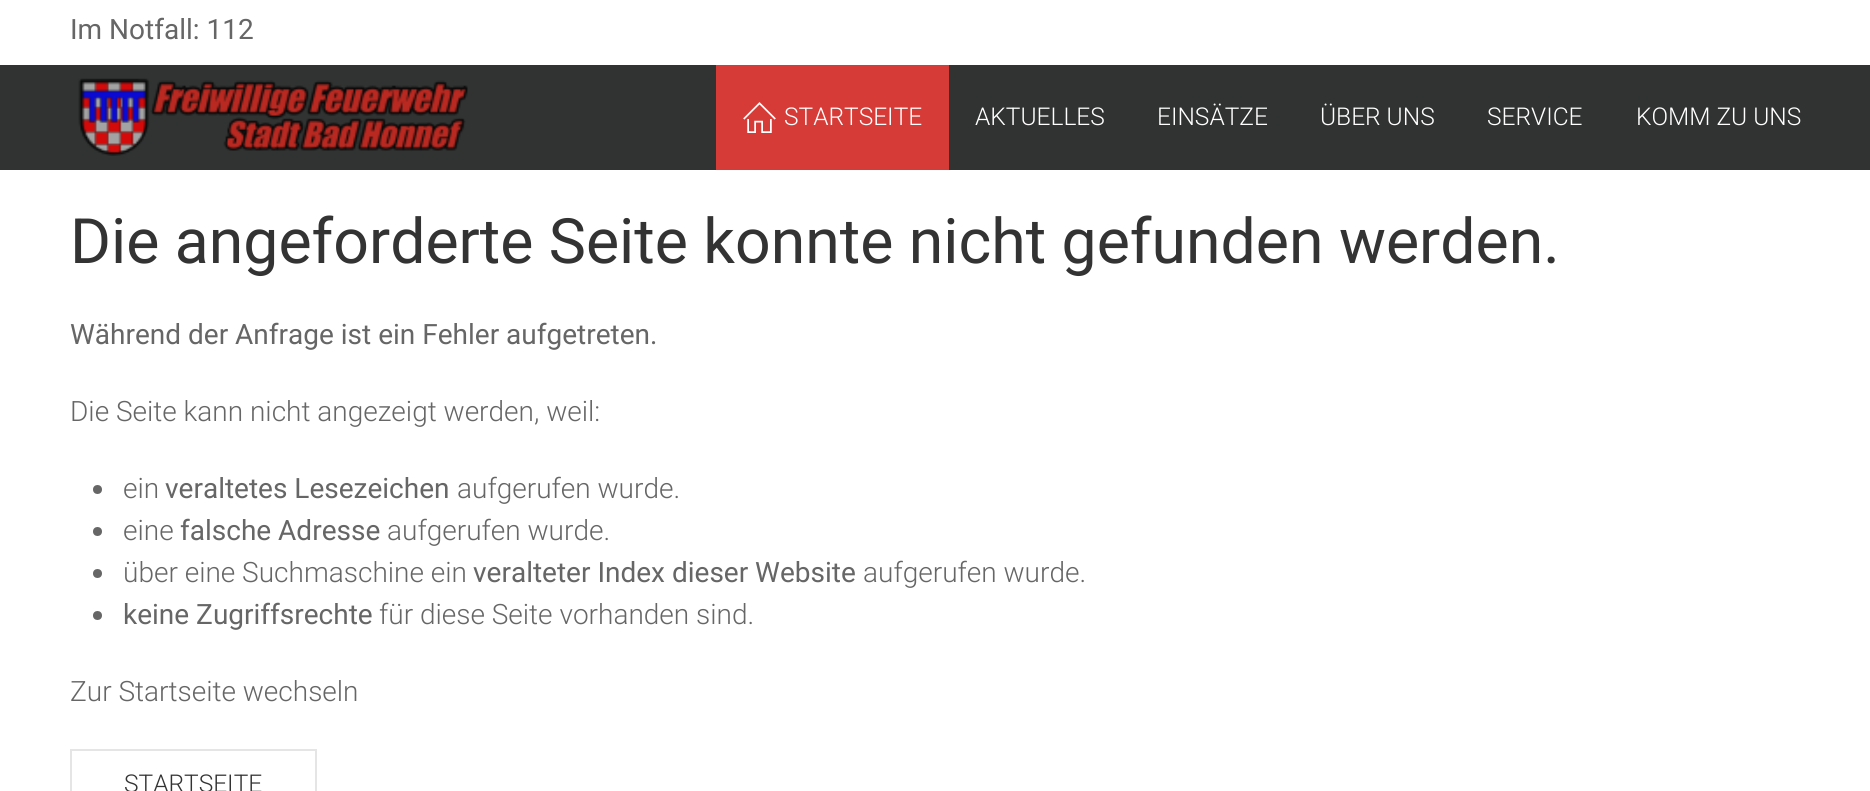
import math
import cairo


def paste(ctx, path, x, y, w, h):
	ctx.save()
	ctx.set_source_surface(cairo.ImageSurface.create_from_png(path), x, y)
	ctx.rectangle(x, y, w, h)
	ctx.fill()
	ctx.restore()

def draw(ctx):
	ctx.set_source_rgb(1, 1, 1)
	ctx.paint()
	ctx.select_font_face('Roboto')
	ctx.set_font_size(28)
	ctx.set_source_rgb(0.4, 0.4, 0.4)
	ctx.move_to(70, 39)
	ctx.show_text('Im Notfall: 112')
	ctx.set_source_rgb(0.192, 0.196, 0.196)
	ctx.rectangle(0, 65, 1870, 105)
	ctx.fill()
	paste(ctx, 'media/1.png', 78, 78, 390, 78)
	ctx.set_source_rgb(0.839, 0.231, 0.216)
	ctx.rectangle(716, 65, 233, 105)
	ctx.fill()
	paste(ctx, 'media/2.png', 743, 102, 33, 31)
	ctx.select_font_face('Roboto Light')
	ctx.set_font_size(24.5)
	ctx.set_source_rgb(1, 1, 1)
	for x, y, s in [
		(784, 125, 'STARTSEITE'),
		(975, 125, 'AKTUELLES'),
		(1157, 125, 'EINSÄTZE'),
		(1320, 125, 'ÜBER UNS'),
		(1487, 125, 'SERVICE'),
		(1636, 125, 'KOMM ZU UNS'),
	]:
		ctx.move_to(x, y)
		ctx.show_text(s)
	ctx.select_font_face('Roboto')
	ctx.set_font_size(62.5)
	ctx.set_source_rgb(0.2, 0.2, 0.2)
	ctx.move_to(70, 263)
	ctx.show_text('Die angeforderte Seite konnte nicht gefunden werden.')
	ctx.set_font_size(28)
	ctx.set_source_rgb(0.4, 0.4, 0.4)
	ctx.move_to(70, 344)
	ctx.show_text('Während der Anfrage ist ein Fehler aufgetreten.')
	ctx.select_font_face('Roboto Light')
	ctx.move_to(70, 421)
	ctx.show_text('Die Seite kann nicht angezeigt werden, weil:')
	ctx.new_path()
	ctx.arc(97.5, 489.5, 4.5, 0, 2 * math.pi)
	ctx.fill()
	ctx.move_to(123, 498)
	ctx.show_text('ein')
	ctx.select_font_face('Roboto')
	ctx.move_to(165, 498)
	ctx.show_text('veraltetes Lesezeichen')
	ctx.select_font_face('Roboto Light')
	ctx.move_to(457, 498)
	ctx.show_text('aufgerufen wurde.')
	ctx.new_path()
	ctx.arc(97.5, 531.5, 4.5, 0, 2 * math.pi)
	ctx.fill()
	ctx.move_to(123, 540)
	ctx.show_text('eine')
	ctx.select_font_face('Roboto')
	ctx.move_to(180, 540)
	ctx.show_text('falsche Adresse')
	ctx.select_font_face('Roboto Light')
	ctx.move_to(387, 540)
	ctx.show_text('aufgerufen wurde.')
	ctx.new_path()
	ctx.arc(97.5, 573.5, 4.5, 0, 2 * math.pi)
	ctx.fill()
	ctx.move_to(123, 582)
	ctx.show_text('über eine Suchmaschine ein')
	ctx.select_font_face('Roboto')
	ctx.move_to(473, 582)
	ctx.show_text('veralteter Index dieser Website')
	ctx.select_font_face('Roboto Light')
	ctx.move_to(863, 582)
	ctx.show_text('aufgerufen wurde.')
	ctx.new_path()
	ctx.arc(97.5, 615.5, 4.5, 0, 2 * math.pi)
	ctx.fill()
	ctx.select_font_face('Roboto')
	ctx.move_to(123, 624)
	ctx.show_text('keine Zugriffsrechte')
	ctx.select_font_face('Roboto Light')
	ctx.move_to(379, 624)
	ctx.show_text('für diese Seite vorhanden sind.')
	ctx.move_to(70, 701)
	ctx.show_text('Zur Startseite wechseln')
	ctx.rectangle(71, 750, 245, 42)
	ctx.set_source_rgb(0.898, 0.898, 0.898)
	ctx.stroke()
	ctx.set_font_size(24.5)
	ctx.set_source_rgb(0.2, 0.2, 0.2)
	ctx.move_to(124, 792)
	ctx.show_text('STARTSEITE')


surface = cairo.ImageSurface(cairo.FORMAT_RGB24, 1870, 791)
ctx = cairo.Context(surface)
options = cairo.FontOptions()
options.set_hint_metrics(cairo.HINT_METRICS_OFF)
options.set_hint_style(cairo.HINT_STYLE_NONE)
ctx.set_font_options(options)
ctx.set_miter_limit(4)
draw(ctx)
surface.write_to_png('image.png')
